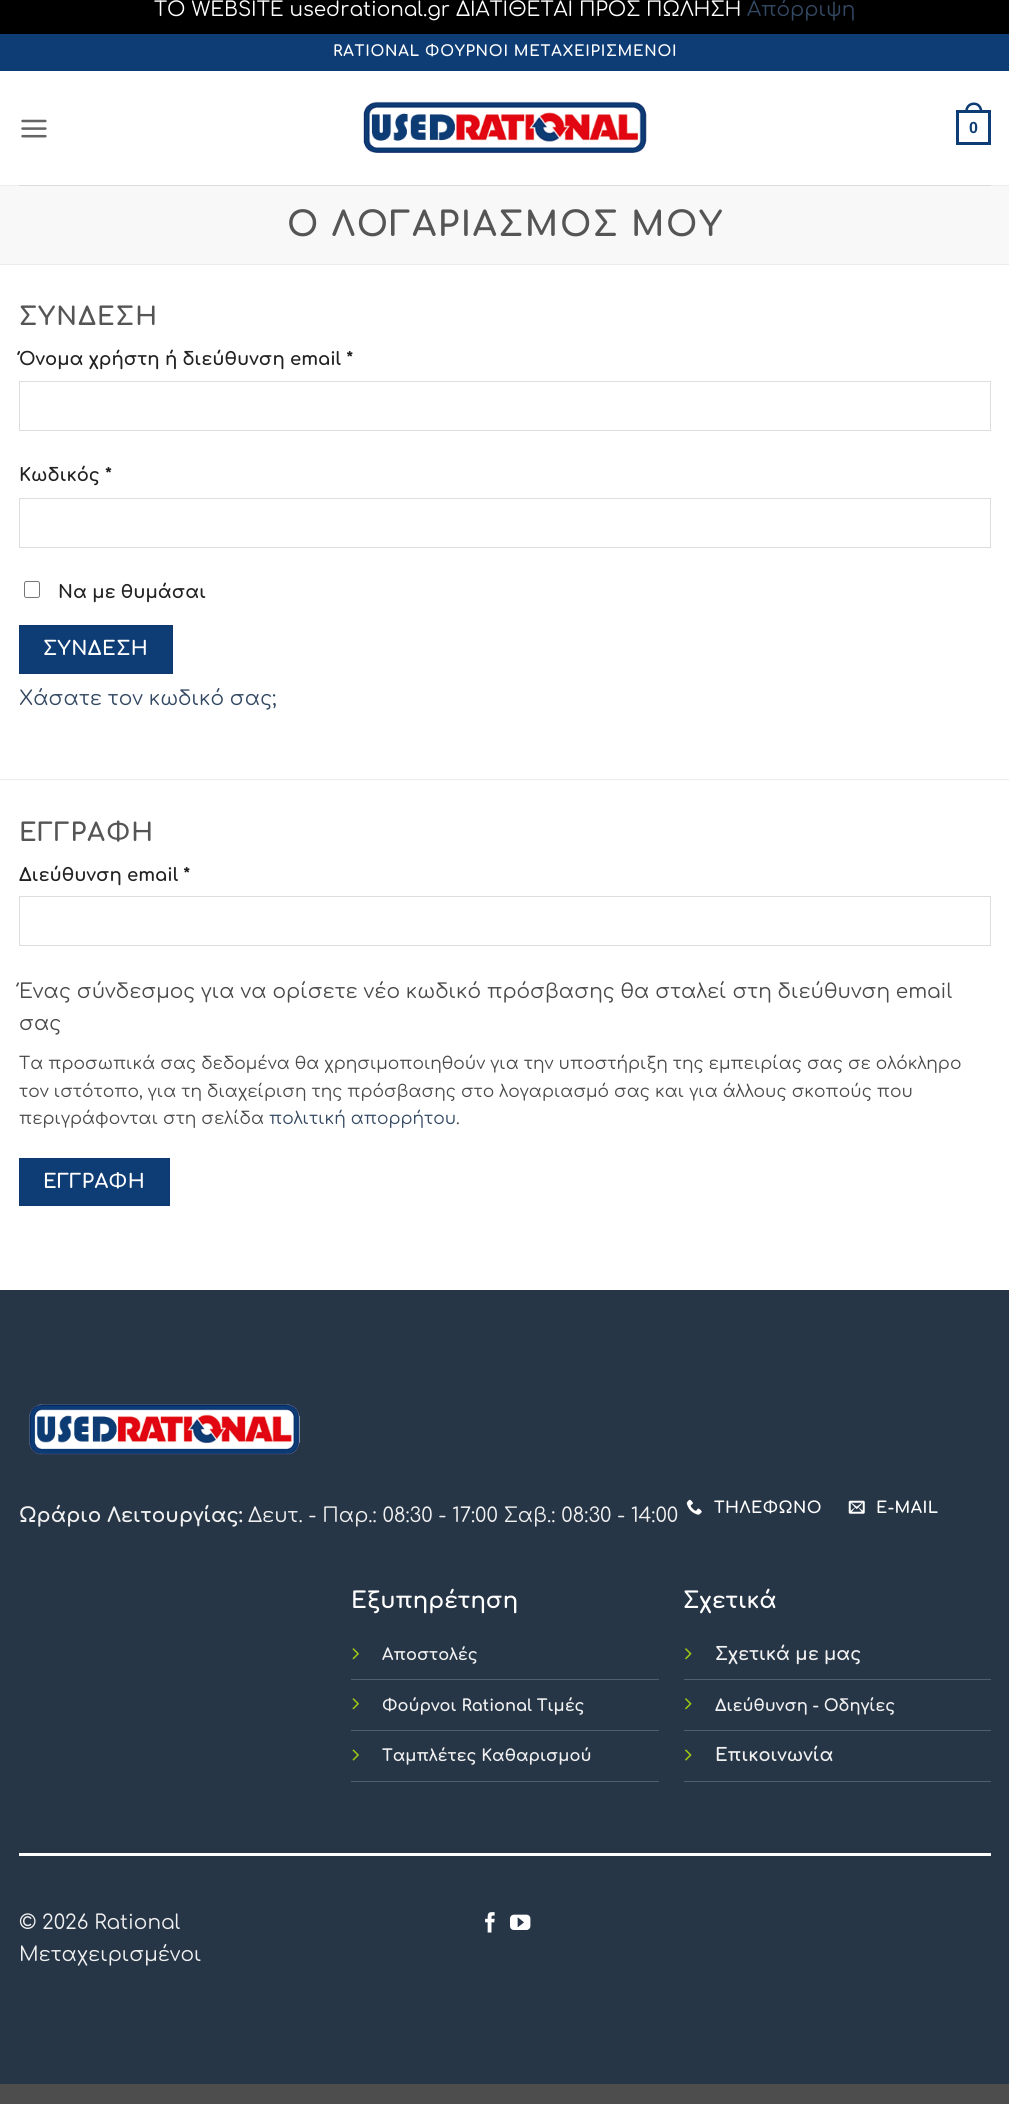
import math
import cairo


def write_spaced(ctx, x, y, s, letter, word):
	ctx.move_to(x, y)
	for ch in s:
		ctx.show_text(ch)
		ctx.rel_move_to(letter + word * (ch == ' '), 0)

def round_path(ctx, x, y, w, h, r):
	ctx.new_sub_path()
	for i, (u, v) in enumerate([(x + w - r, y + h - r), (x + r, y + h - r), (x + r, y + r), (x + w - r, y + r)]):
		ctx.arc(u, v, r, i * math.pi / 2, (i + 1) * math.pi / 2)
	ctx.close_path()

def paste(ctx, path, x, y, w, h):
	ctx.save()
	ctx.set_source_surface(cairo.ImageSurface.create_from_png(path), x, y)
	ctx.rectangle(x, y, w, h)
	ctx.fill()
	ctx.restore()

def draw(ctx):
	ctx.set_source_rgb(0, 0, 0)
	ctx.paint()
	ctx.select_font_face('Comfortaa')
	ctx.set_font_size(20)
	ctx.set_source_rgb(1, 1, 1)
	ctx.move_to(154, 16)
	ctx.show_text('ΤΟ WEBSITE usedrational.gr ΔΙΑΤΙΘΕΤΑΙ ΠΡΟΣ ΠΩΛΗΣΗ')
	ctx.set_source_rgb(0.2, 0.282, 0.384)
	ctx.move_to(747, 16)
	ctx.show_text('Απόρριψη')
	ctx.set_source_rgb(1, 1, 1)
	ctx.rectangle(0, 71, 1009, 1219)
	ctx.fill()
	ctx.set_source_rgb(0.055, 0.235, 0.459)
	ctx.rectangle(0, 34, 1009, 37)
	ctx.fill()
	ctx.select_font_face('Comfortaa', cairo.FONT_SLANT_NORMAL, cairo.FONT_WEIGHT_BOLD)
	ctx.set_font_size(15)
	ctx.set_source_rgb(1, 1, 1)
	write_spaced(ctx, 333, 56, 'RATIONAL ΦΟΥΡΝΟΙ ΜΕΤΑΧΕΙΡΙΣΜΕΝΟΙ', 0.75, 0)
	paste(ctx, 'media/1.png', 21, 119, 26, 19)
	paste(ctx, 'media/2.png', 363, 101, 284, 52)
	ctx.rectangle(957.5, 111.5, 32, 32)
	ctx.set_source_rgb(0.055, 0.235, 0.459)
	ctx.set_line_width(3)
	ctx.stroke()
	ctx.set_fill_rule(cairo.FILL_RULE_EVEN_ODD)
	ctx.new_path()
	ctx.move_to(974, 102.5)
	ctx.curve_to(979.5, 102.5, 982.5, 107, 982.5, 112.5)
	ctx.line_to(965, 112.5)
	ctx.curve_to(965, 107, 968, 102.5, 974, 102.5)
	ctx.close_path()
	ctx.move_to(974, 105)
	ctx.curve_to(978, 105, 980, 108.5, 980, 112.5)
	ctx.line_to(967.5, 112.5)
	ctx.curve_to(967.5, 108.5, 969.5, 105, 974, 105)
	ctx.close_path()
	ctx.fill()
	ctx.select_font_face('Liberation Sans', cairo.FONT_SLANT_NORMAL, cairo.FONT_WEIGHT_BOLD)
	ctx.set_font_size(16)
	ctx.move_to(969, 133)
	ctx.show_text('0')
	ctx.set_source_rgb(0.925, 0.925, 0.925)
	ctx.rectangle(0, 185, 1009, 1)
	ctx.fill()
	ctx.set_source_rgb(0.863, 0.863, 0.863)
	ctx.rectangle(19, 185, 972, 1)
	ctx.fill()
	ctx.set_source_rgb(0.969, 0.969, 0.969)
	ctx.rectangle(0, 186, 1009, 78)
	ctx.fill()
	ctx.set_source_rgb(0.925, 0.925, 0.925)
	ctx.rectangle(0, 264, 1009, 1)
	ctx.fill()
	ctx.select_font_face('Comfortaa', cairo.FONT_SLANT_NORMAL, cairo.FONT_WEIGHT_BOLD)
	ctx.set_font_size(34)
	ctx.set_source_rgb(0.333, 0.333, 0.333)
	write_spaced(ctx, 287, 236, 'Ο ΛΟΓΑΡΙΑΣΜΟΣ ΜΟΥ', 1.75, 0)
	ctx.set_source_rgb(0.925, 0.925, 0.925)
	ctx.rectangle(0, 779, 1009, 1)
	ctx.fill()
	ctx.set_font_size(25)
	ctx.set_source_rgb(0.333, 0.333, 0.333)
	write_spaced(ctx, 19, 325, 'ΣΥΝΔΕΣΗ', 1.25, 0)
	ctx.set_font_size(18)
	ctx.set_source_rgb(0.133, 0.133, 0.133)
	ctx.move_to(19, 365)
	ctx.show_text('Όνομα χρήστη ή διεύθυνση email *')
	ctx.rectangle(19.5, 381.5, 971, 49)
	ctx.set_source_rgb(0.867, 0.867, 0.867)
	ctx.set_line_width(1)
	ctx.stroke()
	ctx.set_source_rgb(0.133, 0.133, 0.133)
	ctx.move_to(19, 481)
	ctx.show_text('Κωδικός *')
	ctx.rectangle(19.5, 498.5, 971, 49)
	ctx.set_source_rgb(0.867, 0.867, 0.867)
	ctx.stroke()
	round_path(ctx, 24.5, 581.5, 15, 16, 2)
	ctx.set_source_rgb(0.463, 0.463, 0.463)
	ctx.stroke()
	ctx.set_source_rgb(0.133, 0.133, 0.133)
	ctx.move_to(58, 598)
	ctx.show_text('Να με θυμάσαι')
	ctx.set_source_rgb(0.055, 0.235, 0.459)
	ctx.rectangle(19.5, 625.5, 153, 48)
	ctx.fill_preserve()
	ctx.set_source_rgb(0.051, 0.224, 0.435)
	ctx.stroke()
	ctx.set_font_size(19.5)
	ctx.set_source_rgb(1, 1, 1)
	write_spaced(ctx, 43, 655, 'ΣΥΝΔΕΣΗ', 0.5, 0)
	ctx.select_font_face('Comfortaa')
	ctx.set_font_size(20)
	ctx.set_source_rgb(0.2, 0.282, 0.384)
	ctx.move_to(19, 705)
	ctx.show_text('Χάσατε τον κωδικό σας;')
	ctx.select_font_face('Comfortaa', cairo.FONT_SLANT_NORMAL, cairo.FONT_WEIGHT_BOLD)
	ctx.set_font_size(25)
	ctx.set_source_rgb(0.333, 0.333, 0.333)
	write_spaced(ctx, 19, 841, 'ΕΓΓΡΑΦΗ', 1.25, 0)
	ctx.set_font_size(18)
	ctx.set_source_rgb(0.133, 0.133, 0.133)
	ctx.move_to(19, 881)
	ctx.show_text('Διεύθυνση email *')
	ctx.rectangle(19.5, 896.5, 971, 49)
	ctx.set_source_rgb(0.867, 0.867, 0.867)
	ctx.stroke()
	ctx.select_font_face('Comfortaa')
	ctx.set_font_size(20)
	ctx.set_source_rgb(0.29, 0.29, 0.29)
	ctx.move_to(19, 998)
	ctx.show_text('Ένας σύνδεσμος για να ορίσετε νέο κωδικό πρόσβασης θα σταλεί στη διεύθυνση email')
	ctx.move_to(19, 1030)
	ctx.show_text('σας')
	ctx.set_font_size(17)
	for x, y, s in [
		(19, 1069, 'Τα προσωπικά σας δεδομένα θα χρησιμοποιηθούν για την υποστήριξη της εμπειρίας σας σε ολόκληρο'),
		(19, 1097, 'τον ιστότοπο, για τη διαχείριση της πρόσβασης στο λογαριασμό σας και για άλλους σκοπούς που'),
		(19, 1124, 'περιγράφονται στη σελίδα'),
	]:
		ctx.move_to(x, y)
		ctx.show_text(s)
	ctx.set_source_rgb(0.2, 0.282, 0.384)
	ctx.move_to(269, 1124)
	ctx.show_text('πολιτική απορρήτου')
	ctx.set_source_rgb(0.29, 0.29, 0.29)
	ctx.move_to(456, 1124)
	ctx.show_text('.')
	ctx.set_source_rgb(0.055, 0.235, 0.459)
	ctx.rectangle(19.5, 1158.5, 150, 47)
	ctx.fill_preserve()
	ctx.set_source_rgb(0.051, 0.224, 0.435)
	ctx.stroke()
	ctx.select_font_face('Comfortaa', cairo.FONT_SLANT_NORMAL, cairo.FONT_WEIGHT_BOLD)
	ctx.set_font_size(19.5)
	ctx.set_source_rgb(1, 1, 1)
	write_spaced(ctx, 43, 1188, 'ΕΓΓΡΑΦΗ', 0.5, 0)
	ctx.set_source_rgb(0.153, 0.212, 0.278)
	ctx.rectangle(0, 1290, 1009, 794)
	ctx.fill()
	paste(ctx, 'media/3.png', 29, 1404, 271, 51)
	ctx.set_font_size(20)
	ctx.set_source_rgb(0.945, 0.945, 0.945)
	ctx.move_to(19, 1522)
	ctx.show_text('Ωράριο Λειτουργίας:')
	ctx.select_font_face('Comfortaa')
	ctx.move_to(248, 1522)
	ctx.show_text('Δευτ. - Παρ.: 08:30 - 17:00 Σαβ.: 08:30 - 14:00')
	paste(ctx, 'media/4.png', 686, 1499, 16, 16)
	ctx.select_font_face('Comfortaa', cairo.FONT_SLANT_NORMAL, cairo.FONT_WEIGHT_BOLD)
	ctx.set_font_size(16)
	ctx.set_source_rgb(1, 1, 1)
	write_spaced(ctx, 714, 1513, 'ΤΗΛΕΦΩΝΟ', 0.5, 0)
	paste(ctx, 'media/5.png', 848, 1500, 17, 14)
	write_spaced(ctx, 876, 1513, 'E-MAIL', 0.5, 0)
	ctx.set_font_size(22.5)
	ctx.move_to(351, 1608)
	ctx.show_text('Εξυπηρέτηση')
	ctx.set_source_rgb(0.322, 0.369, 0.424)
	ctx.rectangle(351, 1679, 308, 1)
	ctx.fill()
	paste(ctx, 'media/6.png', 352, 1648, 7, 12)
	ctx.set_font_size(16.25)
	ctx.set_source_rgb(0.945, 0.945, 0.945)
	ctx.move_to(382, 1660)
	ctx.show_text('Αποστολές')
	ctx.set_source_rgb(0.322, 0.369, 0.424)
	ctx.rectangle(351, 1730, 308, 1)
	ctx.fill()
	paste(ctx, 'media/6.png', 352, 1698, 7, 12)
	ctx.set_source_rgb(0.945, 0.945, 0.945)
	ctx.move_to(382, 1711)
	ctx.show_text('Φούρνοι Rational Τιμές')
	ctx.set_source_rgb(0.322, 0.369, 0.424)
	ctx.rectangle(351, 1781, 308, 1)
	ctx.fill()
	paste(ctx, 'media/7.png', 352, 1749, 7, 12)
	ctx.set_source_rgb(0.945, 0.945, 0.945)
	ctx.move_to(382, 1761)
	ctx.show_text('Ταμπλέτες Καθαρισμού')
	ctx.set_font_size(22.5)
	ctx.set_source_rgb(1, 1, 1)
	ctx.move_to(683, 1608)
	ctx.show_text('Σχετικά')
	ctx.set_source_rgb(0.322, 0.369, 0.424)
	ctx.rectangle(684, 1679, 307, 1)
	ctx.fill()
	paste(ctx, 'media/8.png', 685, 1648, 7, 12)
	ctx.set_font_size(18)
	ctx.set_source_rgb(0.945, 0.945, 0.945)
	ctx.move_to(715, 1660)
	ctx.show_text('Σχετικά με μας')
	ctx.set_source_rgb(0.322, 0.369, 0.424)
	ctx.rectangle(684, 1730, 307, 1)
	ctx.fill()
	paste(ctx, 'media/8.png', 685, 1698, 7, 12)
	ctx.set_font_size(16.25)
	ctx.set_source_rgb(0.945, 0.945, 0.945)
	ctx.move_to(715, 1711)
	ctx.show_text('Διεύθυνση - Οδηγίες')
	ctx.set_source_rgb(0.322, 0.369, 0.424)
	ctx.rectangle(684, 1781, 307, 1)
	ctx.fill()
	paste(ctx, 'media/9.png', 685, 1749, 7, 12)
	ctx.set_font_size(18)
	ctx.set_source_rgb(0.945, 0.945, 0.945)
	ctx.move_to(715, 1761)
	ctx.show_text('Επικοινωνία')
	ctx.set_source_rgb(1, 1, 1)
	ctx.rectangle(19, 1853, 972, 3)
	ctx.fill()
	ctx.select_font_face('Comfortaa')
	ctx.set_font_size(20)
	ctx.set_source_rgb(0.945, 0.945, 0.945)
	ctx.move_to(19, 1929)
	ctx.show_text('© 2026 Rational')
	ctx.move_to(19, 1961)
	ctx.show_text('Μεταχειρισμένοι')
	paste(ctx, 'media/10.png', 485, 1912, 10, 21)
	paste(ctx, 'media/11.png', 510, 1914, 21, 16)
	ctx.set_source_rgb(0.302, 0.302, 0.302)
	ctx.rectangle(0, 2084, 1009, 20)
	ctx.fill()


surface = cairo.ImageSurface(cairo.FORMAT_RGB24, 1009, 2104)
ctx = cairo.Context(surface)
options = cairo.FontOptions()
options.set_hint_metrics(cairo.HINT_METRICS_OFF)
options.set_hint_style(cairo.HINT_STYLE_NONE)
ctx.set_font_options(options)
ctx.set_miter_limit(4)
draw(ctx)
surface.write_to_png('image.png')
